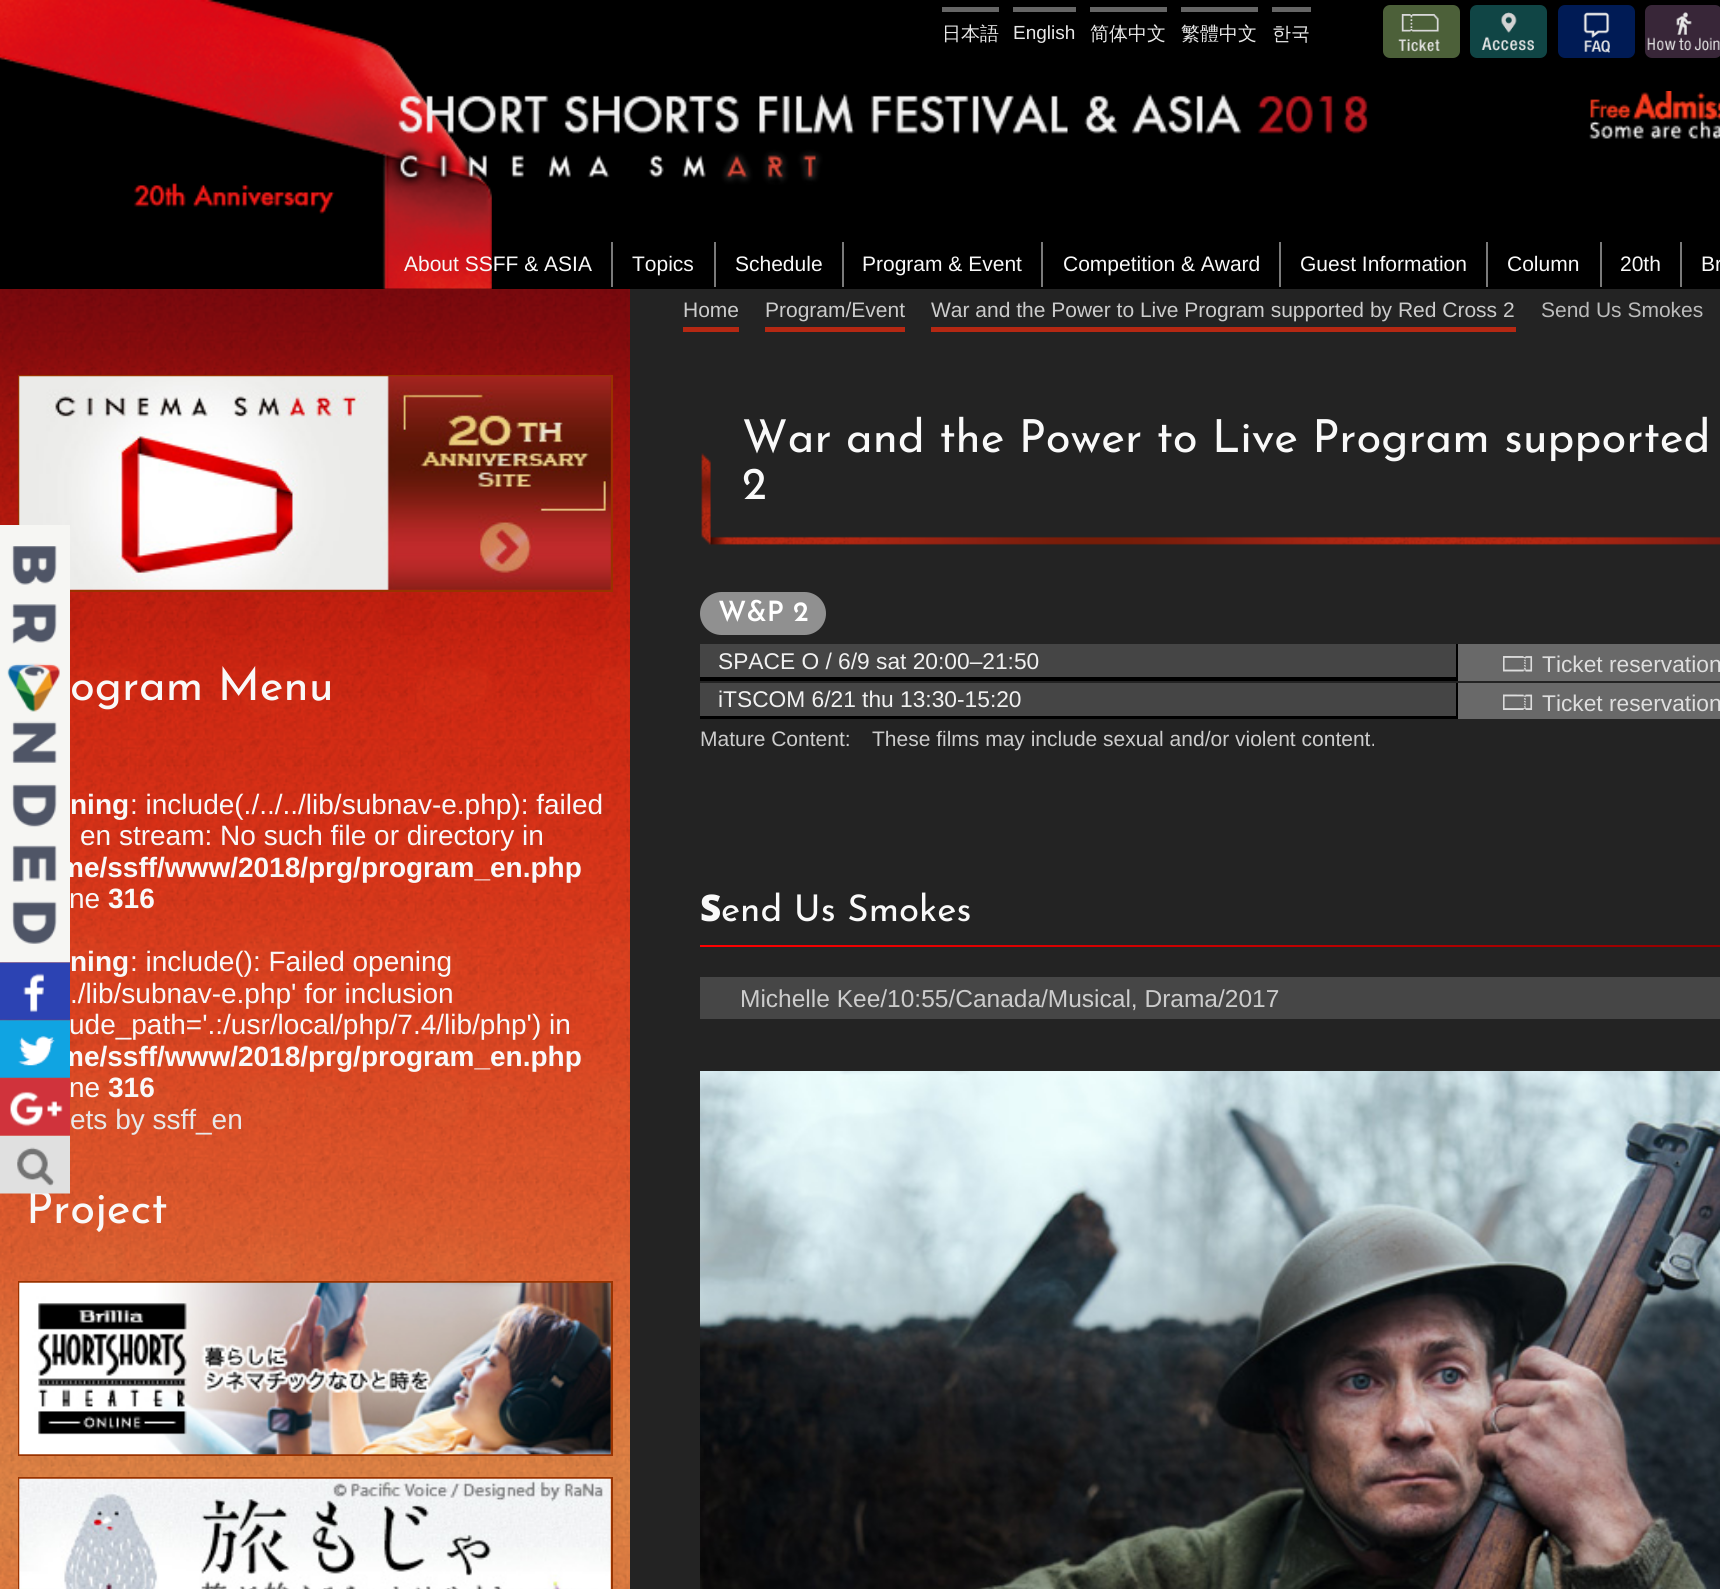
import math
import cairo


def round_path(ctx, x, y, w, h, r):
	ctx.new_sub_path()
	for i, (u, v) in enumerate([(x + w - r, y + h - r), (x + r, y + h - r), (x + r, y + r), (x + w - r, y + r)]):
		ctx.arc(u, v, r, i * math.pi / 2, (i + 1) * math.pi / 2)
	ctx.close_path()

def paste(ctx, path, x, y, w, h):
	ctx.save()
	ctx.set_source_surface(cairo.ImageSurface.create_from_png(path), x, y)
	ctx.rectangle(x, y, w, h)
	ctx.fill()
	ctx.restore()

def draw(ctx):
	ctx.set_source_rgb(0.137, 0.137, 0.137)
	ctx.paint()
	ctx.set_source_rgb(0, 0, 0)
	ctx.rectangle(0, 0, 1720, 289)
	ctx.fill()
	paste(ctx, 'media/1.png', 0, 0, 492, 289)
	ctx.set_source_rgb(0.4, 0.4, 0.4)
	ctx.rectangle(942, 7, 57, 5)
	ctx.fill()
	ctx.select_font_face('WenQuanYi Zen Hei Medium')
	ctx.set_font_size(19)
	ctx.set_source_rgb(0.91, 0.91, 0.91)
	ctx.move_to(942, 40)
	ctx.show_text('日本語')
	ctx.set_source_rgb(0.4, 0.4, 0.4)
	ctx.rectangle(1013, 7, 63, 5)
	ctx.fill()
	ctx.select_font_face('Liberation Sans')
	ctx.set_source_rgb(0.91, 0.91, 0.91)
	ctx.move_to(1013, 39)
	ctx.show_text('English')
	ctx.set_source_rgb(0.4, 0.4, 0.4)
	ctx.rectangle(1090, 7, 77, 5)
	ctx.fill()
	ctx.select_font_face('WenQuanYi Zen Hei Medium')
	ctx.set_source_rgb(0.91, 0.91, 0.91)
	ctx.move_to(1090, 40)
	ctx.show_text('简体中文')
	ctx.set_source_rgb(0.4, 0.4, 0.4)
	ctx.rectangle(1181, 7, 77, 5)
	ctx.fill()
	ctx.set_source_rgb(0.91, 0.91, 0.91)
	ctx.move_to(1181, 40)
	ctx.show_text('繁體中文')
	ctx.set_source_rgb(0.4, 0.4, 0.4)
	ctx.rectangle(1272, 7, 39, 5)
	ctx.fill()
	ctx.set_source_rgb(0.91, 0.91, 0.91)
	ctx.move_to(1272, 40)
	ctx.show_text('한국')
	paste(ctx, 'media/2.png', 392, 94, 976, 92)
	paste(ctx, 'media/3.png', 1589, 91, 131, 48)
	ctx.set_source_rgb(0.298, 0.376, 0.224)
	round_path(ctx, 1383, 5, 77, 53, 7)
	ctx.fill()
	paste(ctx, 'media/4.png', 1398, 14, 42, 38)
	ctx.set_source_rgb(0.063, 0.271, 0.271)
	round_path(ctx, 1470, 5, 77, 53, 7)
	ctx.fill()
	paste(ctx, 'media/5.png', 1481, 12, 53, 39)
	ctx.set_source_rgb(0, 0.106, 0.333)
	round_path(ctx, 1558, 5, 77, 53, 7)
	ctx.fill()
	paste(ctx, 'media/6.png', 1583, 12, 27, 41)
	ctx.set_source_rgb(0.22, 0.149, 0.22)
	round_path(ctx, 1645, 5, 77, 53, 7)
	ctx.fill()
	paste(ctx, 'media/7.png', 1647, 12, 73, 39)
	ctx.set_source_rgb(0.478, 0.478, 0.478)
	ctx.rectangle(611, 242, 2, 45)
	ctx.fill()
	ctx.select_font_face('Liberation Sans')
	ctx.set_font_size(21)
	ctx.set_source_rgb(0.976, 0.976, 0.976)
	ctx.move_to(404, 271)
	ctx.show_text('About SSFF & ASIA')
	ctx.set_source_rgb(0.478, 0.478, 0.478)
	ctx.rectangle(714, 242, 2, 45)
	ctx.fill()
	ctx.set_source_rgb(0.976, 0.976, 0.976)
	ctx.move_to(632, 271)
	ctx.show_text('Topics')
	ctx.set_source_rgb(0.478, 0.478, 0.478)
	ctx.rectangle(842, 242, 2, 45)
	ctx.fill()
	ctx.set_source_rgb(0.976, 0.976, 0.976)
	ctx.move_to(735, 271)
	ctx.show_text('Schedule')
	ctx.set_source_rgb(0.478, 0.478, 0.478)
	ctx.rectangle(1041, 242, 2, 45)
	ctx.fill()
	ctx.set_source_rgb(0.976, 0.976, 0.976)
	ctx.move_to(862, 271)
	ctx.show_text('Program & Event')
	ctx.set_source_rgb(0.478, 0.478, 0.478)
	ctx.rectangle(1279, 242, 2, 45)
	ctx.fill()
	ctx.set_source_rgb(0.976, 0.976, 0.976)
	ctx.move_to(1063, 271)
	ctx.show_text('Competition & Award')
	ctx.set_source_rgb(0.478, 0.478, 0.478)
	ctx.rectangle(1486, 242, 2, 45)
	ctx.fill()
	ctx.set_source_rgb(0.976, 0.976, 0.976)
	ctx.move_to(1300, 271)
	ctx.show_text('Guest Information')
	ctx.set_source_rgb(0.478, 0.478, 0.478)
	ctx.rectangle(1600, 242, 2, 45)
	ctx.fill()
	ctx.set_source_rgb(0.976, 0.976, 0.976)
	ctx.move_to(1507, 271)
	ctx.show_text('Column')
	ctx.set_source_rgb(0.478, 0.478, 0.478)
	ctx.rectangle(1680, 242, 2, 45)
	ctx.fill()
	ctx.set_source_rgb(0.976, 0.976, 0.976)
	ctx.move_to(1620, 271)
	ctx.show_text('20th')
	ctx.move_to(1701, 271)
	ctx.show_text('Br')
	paste(ctx, 'media/8.png', 0, 289, 630, 1300)
	ctx.set_source_rgb(0.8, 0.8, 0.8)
	ctx.move_to(683, 317)
	ctx.show_text('Home')
	ctx.set_source_rgb(0.71, 0.157, 0.075)
	ctx.rectangle(683, 327, 56, 5)
	ctx.fill()
	ctx.set_source_rgb(0.8, 0.8, 0.8)
	ctx.move_to(765, 317)
	ctx.show_text('Program/Event')
	ctx.set_source_rgb(0.71, 0.157, 0.075)
	ctx.rectangle(765, 327, 140, 5)
	ctx.fill()
	ctx.set_source_rgb(0.8, 0.8, 0.8)
	ctx.move_to(931, 317)
	ctx.show_text('War and the Power to Live Program supported by Red Cross 2')
	ctx.set_source_rgb(0.71, 0.157, 0.075)
	ctx.rectangle(931, 327, 585, 5)
	ctx.fill()
	ctx.set_source_rgb(0.737, 0.737, 0.737)
	ctx.move_to(1541, 317)
	ctx.show_text('Send Us Smokes')
	ctx.rectangle(19, 376, 593, 215)
	ctx.set_source_rgb(0.6, 0.2, 0)
	ctx.stroke()
	paste(ctx, 'media/9.png', 19, 376, 592, 214)
	ctx.select_font_face('Josefin Sans')
	ctx.set_font_size(45.5)
	ctx.set_source_rgb(0.976, 0.976, 0.976)
	ctx.move_to(70, 700)
	ctx.show_text('ogram Menu')
	ctx.select_font_face('Liberation Sans', cairo.FONT_SLANT_NORMAL, cairo.FONT_WEIGHT_BOLD)
	ctx.set_font_size(28)
	ctx.move_to(70, 814)
	ctx.show_text('ning')
	ctx.select_font_face('Liberation Sans')
	ctx.move_to(130, 814)
	ctx.show_text(': include(./../../lib/subnav-e.php): failed')
	ctx.move_to(80, 845)
	ctx.show_text('en stream: No such file or directory in')
	ctx.select_font_face('Liberation Sans', cairo.FONT_SLANT_NORMAL, cairo.FONT_WEIGHT_BOLD)
	ctx.move_to(59, 877)
	ctx.show_text('me/ssff/www/2018/prg/program_en.php')
	ctx.select_font_face('Liberation Sans')
	ctx.move_to(69, 908)
	ctx.show_text('ne')
	ctx.select_font_face('Liberation Sans', cairo.FONT_SLANT_NORMAL, cairo.FONT_WEIGHT_BOLD)
	ctx.move_to(108, 908)
	ctx.show_text('316')
	ctx.move_to(70, 971)
	ctx.show_text('ning')
	ctx.select_font_face('Liberation Sans')
	for x, y, s in [
		(130, 971, ': include(): Failed opening'),
		(70, 1003, './lib/subnav-e.php\' for inclusion'),
		(69, 1034, 'ude_path=\'.:/usr/local/php/7.4/lib/php\') in'),
	]:
		ctx.move_to(x, y)
		ctx.show_text(s)
	ctx.select_font_face('Liberation Sans', cairo.FONT_SLANT_NORMAL, cairo.FONT_WEIGHT_BOLD)
	ctx.move_to(59, 1066)
	ctx.show_text('me/ssff/www/2018/prg/program_en.php')
	ctx.select_font_face('Liberation Sans')
	ctx.move_to(69, 1097)
	ctx.show_text('ne')
	ctx.select_font_face('Liberation Sans', cairo.FONT_SLANT_NORMAL, cairo.FONT_WEIGHT_BOLD)
	ctx.move_to(108, 1097)
	ctx.show_text('316')
	ctx.select_font_face('Liberation Sans')
	ctx.set_source_rgb(0.91, 0.91, 0.91)
	ctx.move_to(70, 1129)
	ctx.show_text('ets by ssff_en')
	ctx.select_font_face('Josefin Sans')
	ctx.set_font_size(45.5)
	ctx.set_source_rgb(0.976, 0.976, 0.976)
	ctx.move_to(26, 1223)
	ctx.show_text('Project')
	ctx.rectangle(19, 1282, 593, 173)
	ctx.set_source_rgb(0.6, 0.2, 0)
	ctx.stroke()
	paste(ctx, 'media/10.png', 19, 1282, 592, 173)
	ctx.rectangle(19, 1478, 593, 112)
	ctx.stroke()
	paste(ctx, 'media/11.png', 19, 1478, 592, 111)
	paste(ctx, 'media/12.png', 701, 453, 1019, 92)
	ctx.set_source_rgb(0.976, 0.976, 0.976)
	ctx.move_to(742, 452)
	ctx.show_text('War and the Power to Live Program supported')
	ctx.move_to(742, 499)
	ctx.show_text('2')
	ctx.set_source_rgb(0.565, 0.565, 0.565)
	round_path(ctx, 700, 592, 126, 43, 21.5)
	ctx.fill()
	ctx.select_font_face('Josefin Sans SemiBold')
	ctx.set_font_size(28)
	ctx.set_source_rgb(1, 1, 1)
	ctx.move_to(718, 621)
	ctx.show_text('W&P 2')
	ctx.set_source_rgb(0, 0, 0)
	ctx.rectangle(700, 644, 758, 37)
	ctx.fill()
	ctx.set_source_rgb(0.271, 0.271, 0.271)
	ctx.rectangle(700, 644, 756, 33)
	ctx.fill()
	ctx.select_font_face('Liberation Sans')
	ctx.set_font_size(22.75)
	ctx.set_source_rgb(0.945, 0.945, 0.945)
	ctx.move_to(718, 669)
	ctx.show_text('SPACE O / 6/9 sat 20:00–21:50')
	ctx.set_source_rgb(0.412, 0.412, 0.412)
	ctx.rectangle(1458, 644, 262, 37)
	ctx.fill()
	paste(ctx, 'media/13.png', 1503, 656, 30, 16)
	ctx.set_source_rgb(0.871, 0.871, 0.871)
	ctx.move_to(1542, 672)
	ctx.show_text('Ticket reservation')
	ctx.set_source_rgb(0, 0, 0)
	ctx.rectangle(700, 683, 758, 36)
	ctx.fill()
	ctx.set_source_rgb(0.271, 0.271, 0.271)
	ctx.rectangle(700, 683, 756, 33)
	ctx.fill()
	ctx.set_source_rgb(0.945, 0.945, 0.945)
	ctx.move_to(718, 707)
	ctx.show_text('iTSCOM 6/21 thu 13:30-15:20')
	ctx.set_source_rgb(0.412, 0.412, 0.412)
	ctx.rectangle(1458, 683, 262, 36)
	ctx.fill()
	paste(ctx, 'media/14.png', 1503, 694, 30, 16)
	ctx.set_source_rgb(0.871, 0.871, 0.871)
	ctx.move_to(1542, 711)
	ctx.show_text('Ticket reservation')
	ctx.set_font_size(21)
	ctx.set_source_rgb(0.8, 0.8, 0.8)
	ctx.move_to(700, 746)
	ctx.show_text('Mature Content:')
	ctx.move_to(872, 746)
	ctx.show_text('These films may include sexual and/or violent content.')
	ctx.select_font_face('Noto Sans Black')
	ctx.set_font_size(36.75)
	ctx.set_source_rgb(0.976, 0.976, 0.976)
	ctx.move_to(700, 921)
	ctx.show_text('S')
	ctx.select_font_face('Josefin Sans')
	ctx.move_to(721, 921)
	ctx.show_text('end Us Smokes')
	gradient = cairo.LinearGradient(700, 945, 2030, 947)
	gradient.add_color_stop_rgba(0, 1, 0, 0, 1)
	gradient.add_color_stop_rgba(1, 0.451, 0, 0, 1)
	ctx.set_source(gradient)
	ctx.rectangle(700, 945, 1020, 2)
	ctx.fill()
	ctx.set_source_rgb(0.275, 0.275, 0.275)
	ctx.rectangle(700, 977, 1020, 42)
	ctx.fill()
	ctx.select_font_face('Liberation Sans')
	ctx.set_font_size(24.5)
	ctx.set_source_rgb(0.8, 0.8, 0.8)
	ctx.move_to(740, 1007)
	ctx.show_text('Michelle Kee/10:55/Canada/Musical, Drama/2017')
	paste(ctx, 'media/15.png', 700, 1071, 1020, 518)
	paste(ctx, 'media/16.png', 0, 525, 70, 438)
	paste(ctx, 'media/17.png', 0, 962, 70, 59)
	paste(ctx, 'media/18.png', 0, 1020, 70, 58)
	paste(ctx, 'media/19.png', 0, 1077, 70, 59)
	paste(ctx, 'media/20.png', 0, 1135, 70, 59)


surface = cairo.ImageSurface(cairo.FORMAT_RGB24, 1720, 1589)
ctx = cairo.Context(surface)
options = cairo.FontOptions()
options.set_hint_metrics(cairo.HINT_METRICS_OFF)
options.set_hint_style(cairo.HINT_STYLE_NONE)
ctx.set_font_options(options)
ctx.set_miter_limit(4)
draw(ctx)
surface.write_to_png('image.png')
